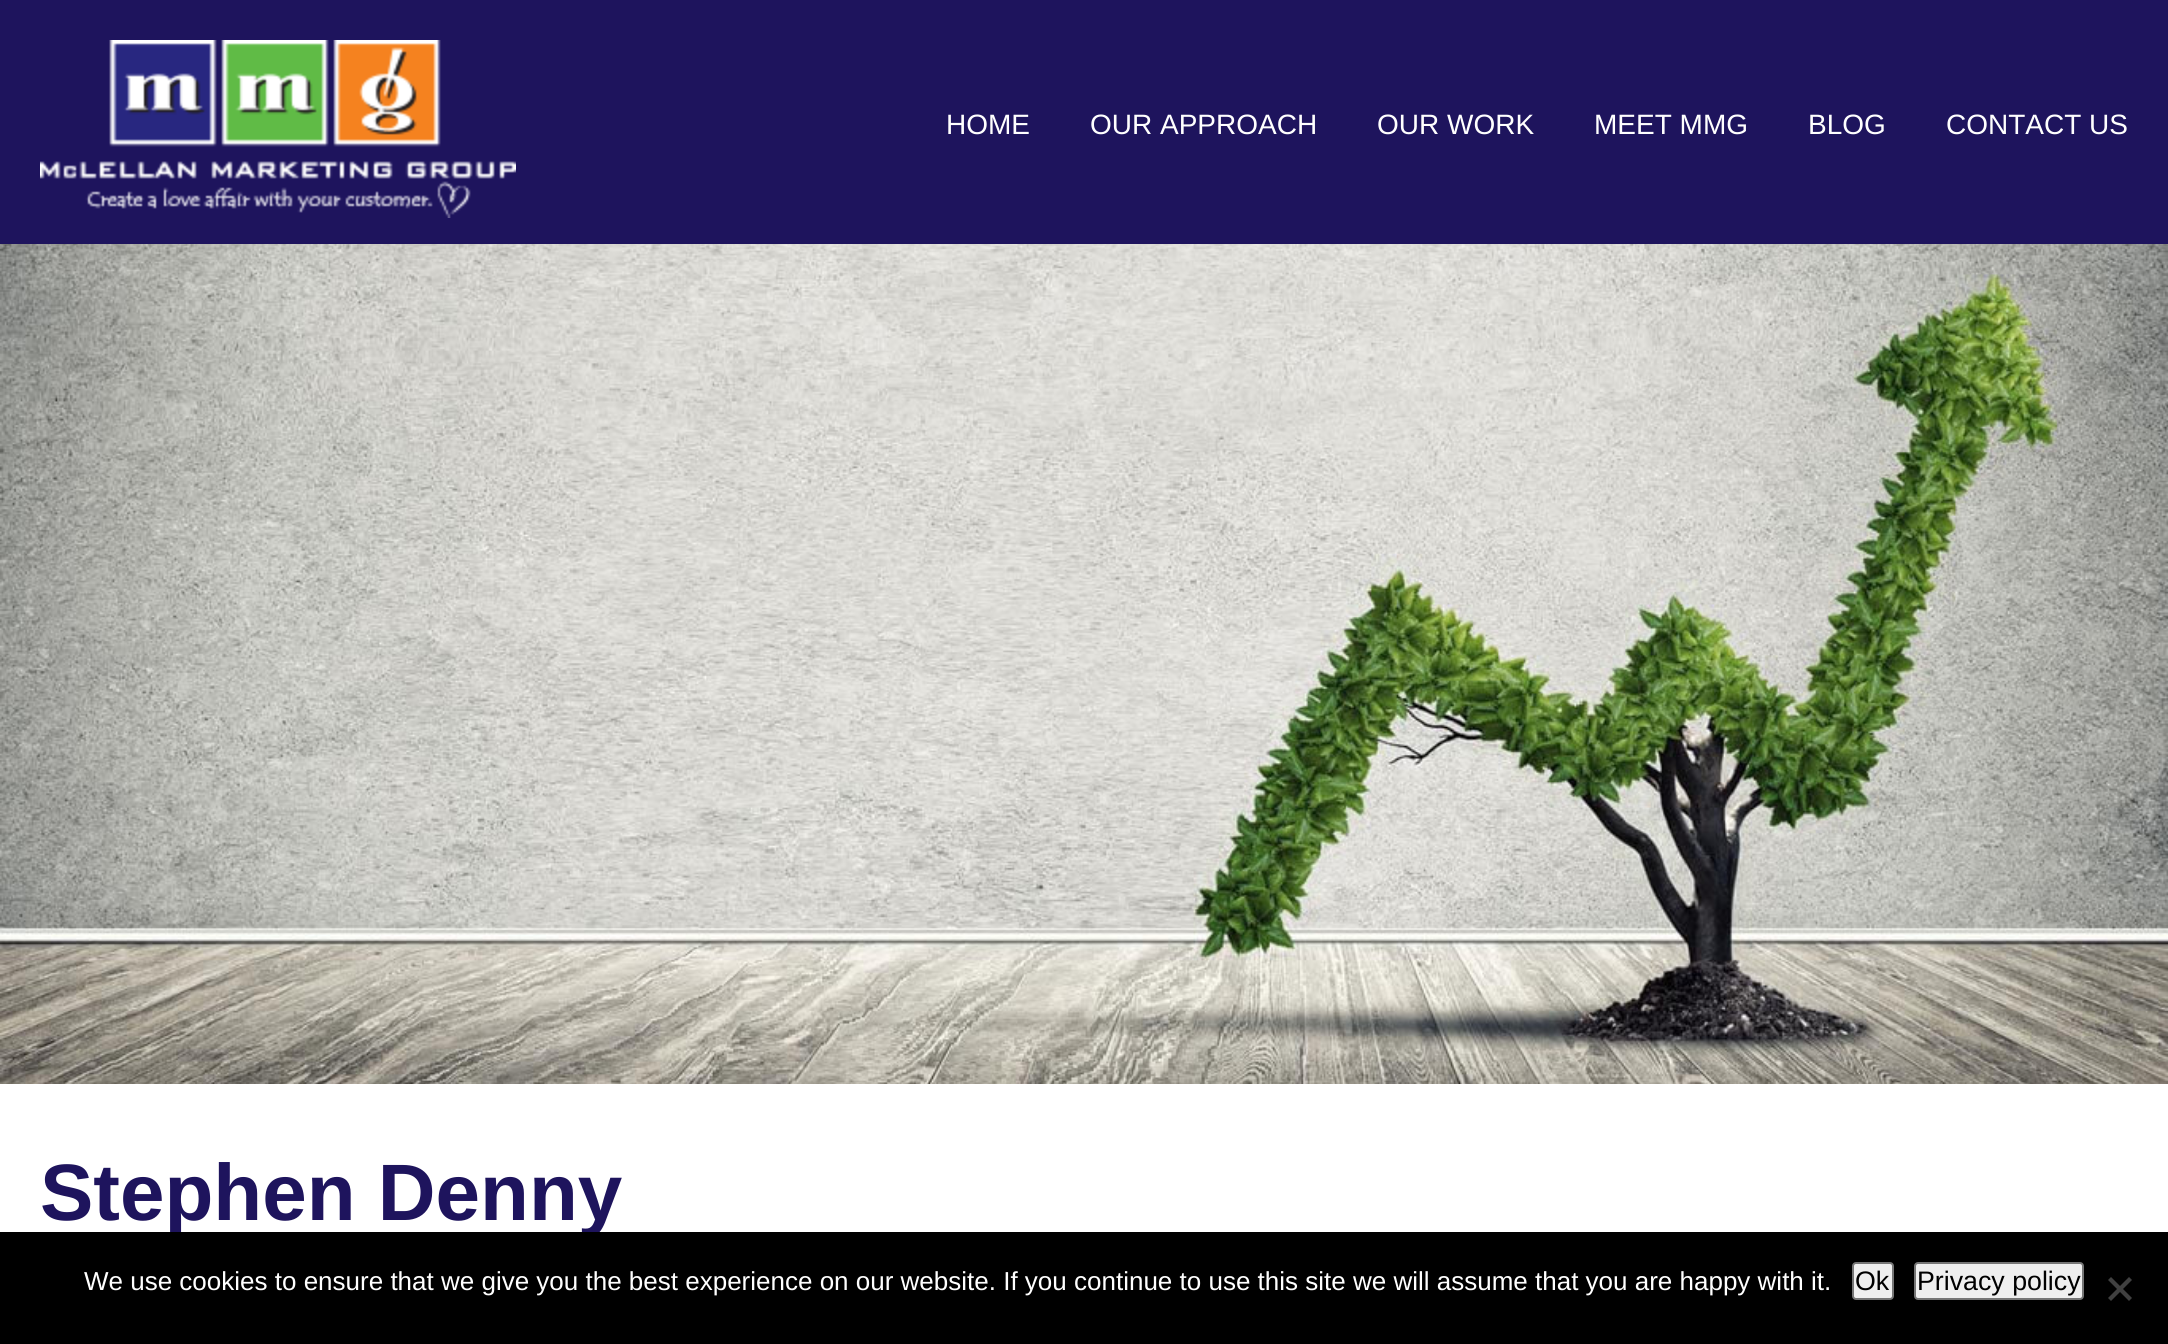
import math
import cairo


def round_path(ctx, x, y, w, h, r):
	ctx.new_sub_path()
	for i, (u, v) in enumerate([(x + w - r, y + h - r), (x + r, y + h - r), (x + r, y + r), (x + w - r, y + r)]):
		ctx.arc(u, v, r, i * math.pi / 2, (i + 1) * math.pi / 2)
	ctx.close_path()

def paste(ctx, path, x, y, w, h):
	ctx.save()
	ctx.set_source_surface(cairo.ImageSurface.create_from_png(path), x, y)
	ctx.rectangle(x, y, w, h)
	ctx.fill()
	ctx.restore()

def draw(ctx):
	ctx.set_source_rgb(1, 1, 1)
	ctx.paint()
	ctx.set_source_rgb(0.118, 0.082, 0.365)
	ctx.rectangle(0, 0, 2168, 244)
	ctx.fill()
	paste(ctx, 'media/1.png', 40, 40, 476, 178)
	ctx.select_font_face('Liberation Sans')
	ctx.set_font_size(28)
	ctx.set_source_rgb(1, 1, 1)
	for x, y, s in [
		(946, 134, 'HOME'),
		(1090, 134, 'OUR APPROACH'),
		(1377, 134, 'OUR WORK'),
		(1594, 134, 'MEET MMG'),
		(1808, 134, 'BLOG'),
		(1946, 134, 'CONTACT US'),
	]:
		ctx.move_to(x, y)
		ctx.show_text(s)
	paste(ctx, 'media/2.png', 0, 244, 2168, 840)
	ctx.select_font_face('Liberation Sans', cairo.FONT_SLANT_NORMAL, cairo.FONT_WEIGHT_BOLD)
	ctx.set_font_size(80)
	ctx.set_source_rgb(0.118, 0.082, 0.365)
	ctx.move_to(40, 1220)
	ctx.show_text('Stephen Denny')
	ctx.set_source_rgb(0, 0, 0)
	ctx.rectangle(0, 1232, 2168, 112)
	ctx.fill()
	ctx.select_font_face('Liberation Sans')
	ctx.set_font_size(26)
	ctx.set_source_rgb(1, 1, 1)
	ctx.move_to(84, 1290)
	ctx.show_text('We use cookies to ensure that we give you the best experience on our website. If you continue to use this site we will assume that you are happy with it.')
	ctx.set_source_rgb(0.937, 0.937, 0.937)
	round_path(ctx, 1853, 1263, 40, 36, 3)
	ctx.fill_preserve()
	ctx.set_source_rgb(0.463, 0.463, 0.463)
	ctx.stroke()
	ctx.set_font_size(26.75)
	ctx.set_source_rgb(0, 0, 0)
	ctx.move_to(1855, 1290)
	ctx.show_text('Ok')
	ctx.set_source_rgb(0.937, 0.937, 0.937)
	round_path(ctx, 1915, 1263, 168, 36, 3)
	ctx.fill_preserve()
	ctx.set_source_rgb(0.463, 0.463, 0.463)
	ctx.stroke()
	ctx.set_source_rgb(0, 0, 0)
	ctx.move_to(1917, 1290)
	ctx.show_text('Privacy policy')
	ctx.set_source_rgb(0.251, 0.251, 0.251)
	ctx.new_path()
	ctx.move_to(2129, 1277)
	ctx.line_to(2132, 1280)
	ctx.line_to(2111, 1301)
	ctx.line_to(2108, 1298)
	ctx.close_path()
	ctx.fill()
	ctx.new_path()
	ctx.move_to(2108, 1280)
	ctx.line_to(2111, 1277)
	ctx.line_to(2132, 1298)
	ctx.line_to(2129, 1301)
	ctx.close_path()
	ctx.fill()


surface = cairo.ImageSurface(cairo.FORMAT_RGB24, 2168, 1344)
ctx = cairo.Context(surface)
options = cairo.FontOptions()
options.set_hint_metrics(cairo.HINT_METRICS_OFF)
options.set_hint_style(cairo.HINT_STYLE_NONE)
ctx.set_font_options(options)
ctx.set_miter_limit(4)
draw(ctx)
surface.write_to_png('image.png')
